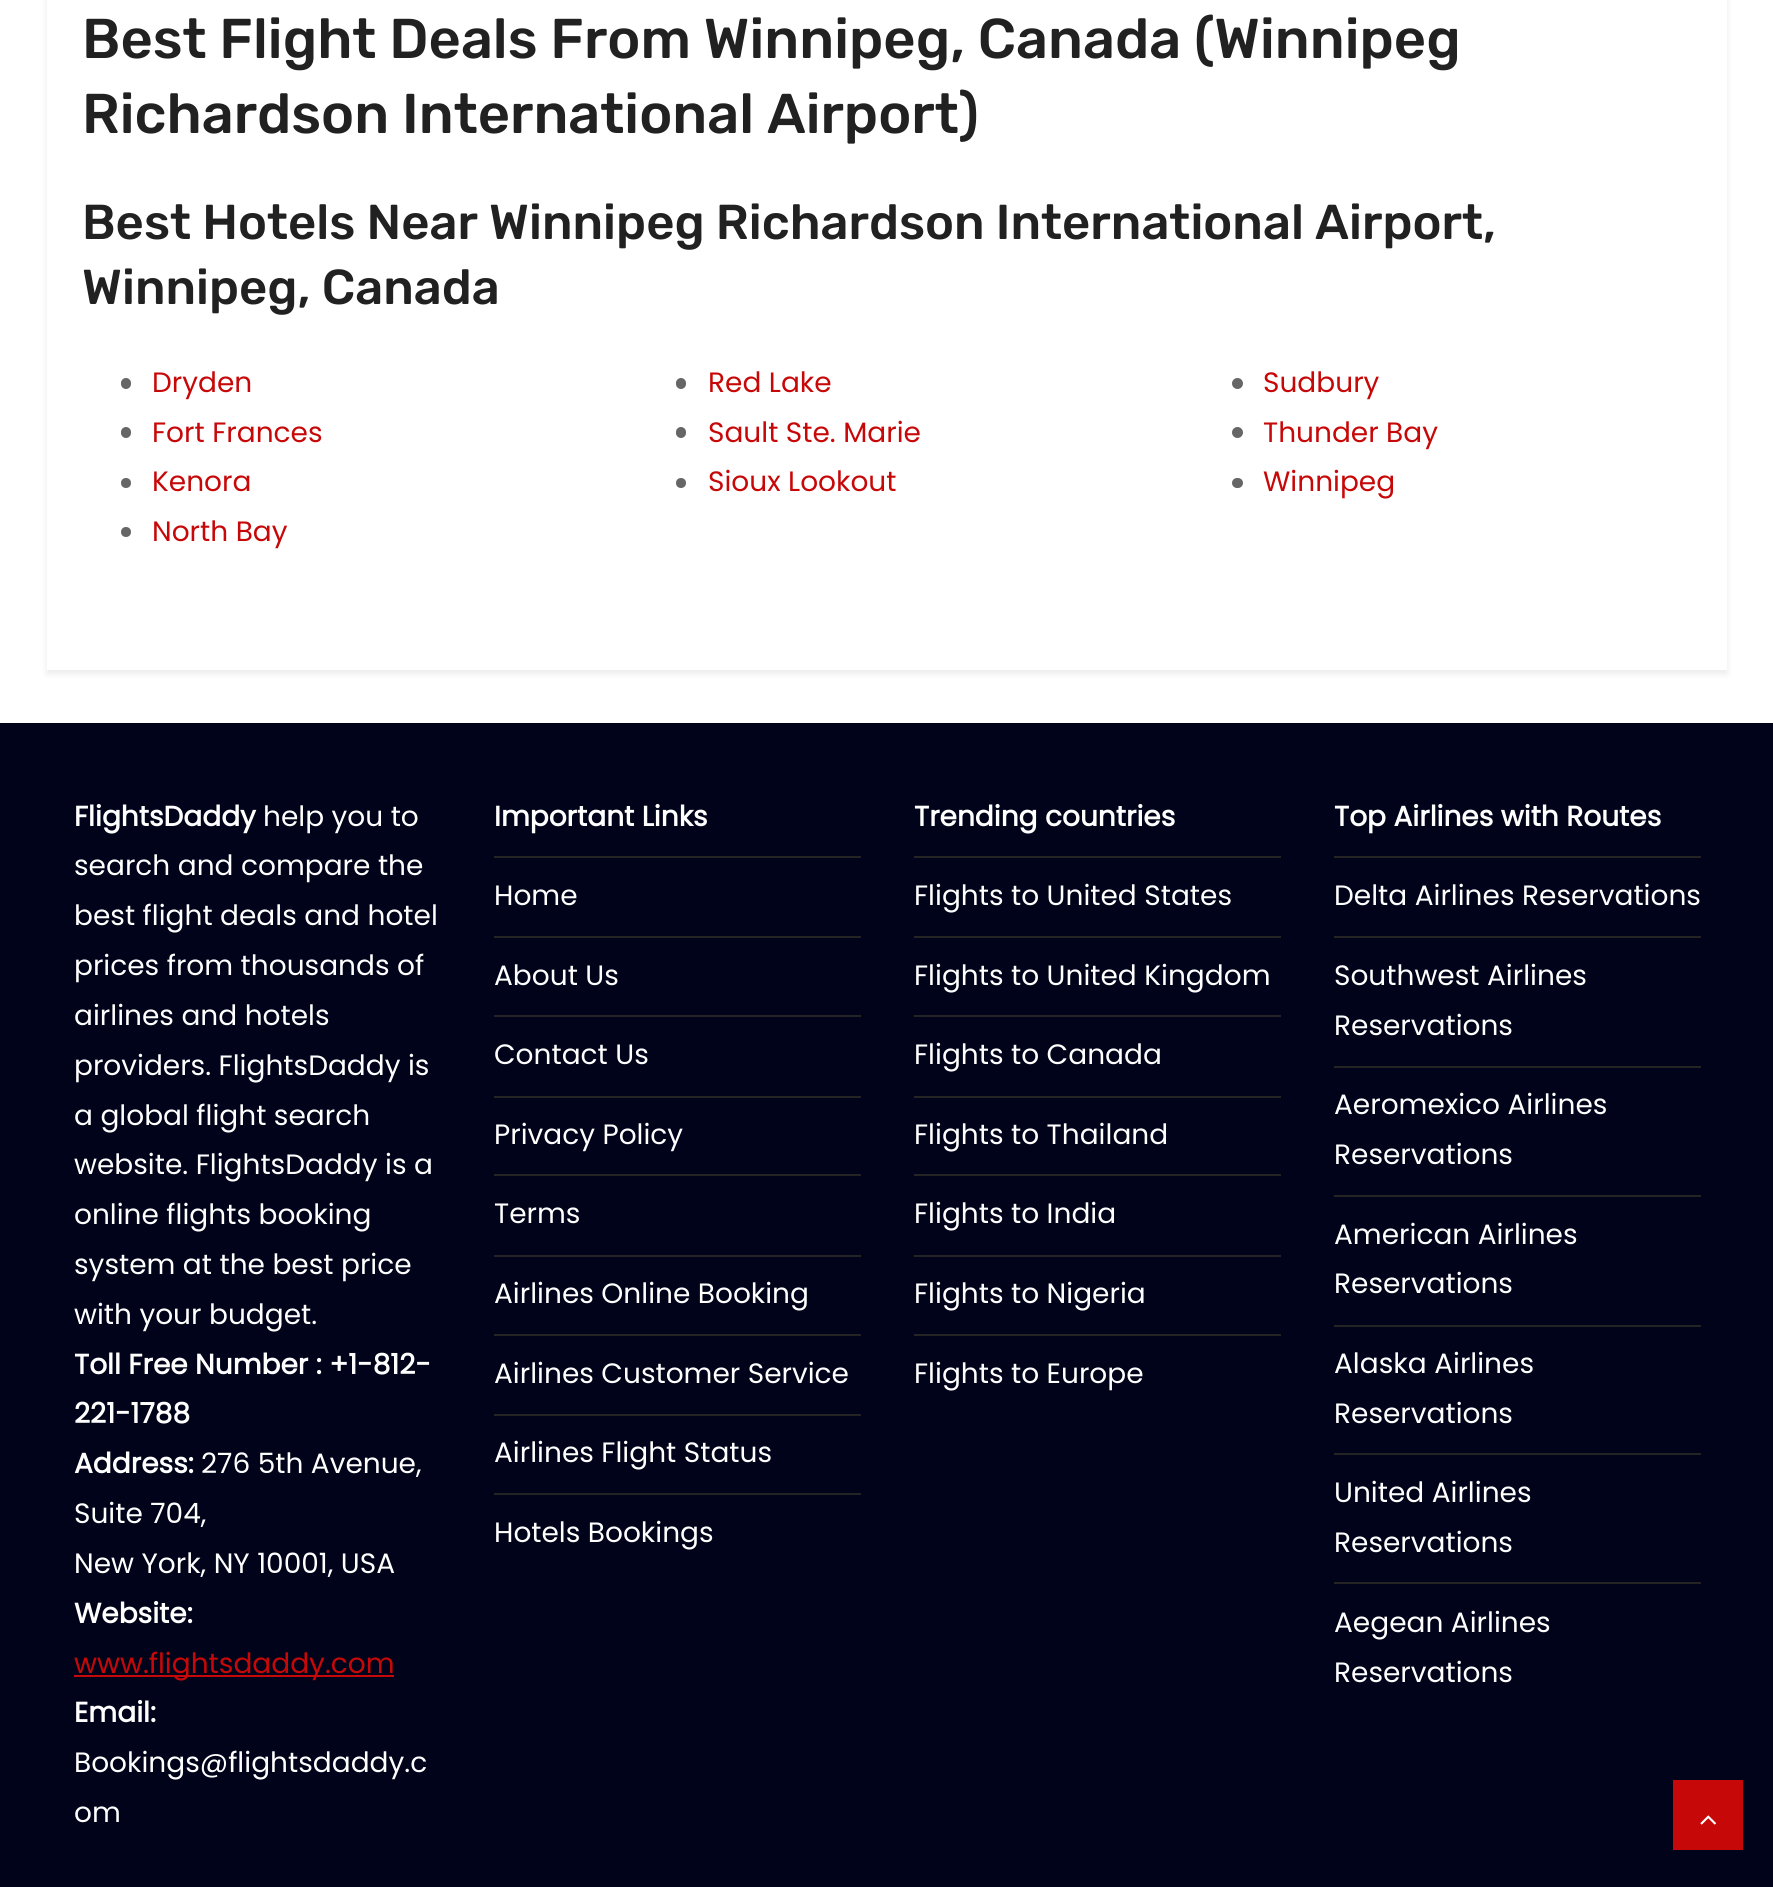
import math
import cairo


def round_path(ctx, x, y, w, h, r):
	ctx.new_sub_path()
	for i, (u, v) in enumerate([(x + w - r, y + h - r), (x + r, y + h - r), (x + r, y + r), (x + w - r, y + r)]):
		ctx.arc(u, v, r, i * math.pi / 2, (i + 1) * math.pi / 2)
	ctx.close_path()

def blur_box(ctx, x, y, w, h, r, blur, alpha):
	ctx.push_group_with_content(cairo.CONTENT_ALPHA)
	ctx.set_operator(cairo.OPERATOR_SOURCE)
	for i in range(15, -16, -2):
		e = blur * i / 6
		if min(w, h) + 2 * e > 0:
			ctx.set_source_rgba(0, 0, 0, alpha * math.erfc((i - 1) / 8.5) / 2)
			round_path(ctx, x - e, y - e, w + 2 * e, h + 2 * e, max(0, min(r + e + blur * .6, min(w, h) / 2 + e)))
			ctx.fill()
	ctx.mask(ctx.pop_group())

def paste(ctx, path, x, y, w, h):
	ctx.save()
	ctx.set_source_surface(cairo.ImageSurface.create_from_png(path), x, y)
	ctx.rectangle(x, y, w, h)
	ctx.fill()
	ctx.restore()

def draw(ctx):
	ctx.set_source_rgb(1, 1, 1)
	ctx.paint()
	ctx.set_source_rgb(0, 0, 0)
	blur_box(ctx, 47, -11, 1680, 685, 0, 3.5, 0.08)
	ctx.set_source_rgb(1, 1, 1)
	ctx.rectangle(47, 0, 1680, 670)
	ctx.fill()
	ctx.select_font_face('Rubik Medium')
	ctx.set_font_size(56)
	ctx.set_source_rgb(0.129, 0.129, 0.129)
	ctx.move_to(82, 58)
	ctx.show_text('Best Flight Deals From Winnipeg, Canada (Winnipeg')
	ctx.move_to(82, 133)
	ctx.show_text('Richardson International Airport)')
	ctx.set_font_size(49)
	ctx.move_to(82, 239)
	ctx.show_text('Best Hotels Near Winnipeg Richardson International Airport,')
	ctx.move_to(82, 304)
	ctx.show_text('Winnipeg, Canada')
	ctx.set_source_rgb(0.4, 0.4, 0.4)
	round_path(ctx, 121, 378, 10, 11, 5)
	ctx.fill()
	ctx.select_font_face('Poppins')
	ctx.set_font_size(28)
	ctx.set_source_rgb(0.78, 0.035, 0.035)
	ctx.move_to(152, 392)
	ctx.show_text('Dryden')
	ctx.set_source_rgb(0.4, 0.4, 0.4)
	round_path(ctx, 121, 427, 10, 11, 5)
	ctx.fill()
	ctx.set_source_rgb(0.78, 0.035, 0.035)
	ctx.move_to(152, 442)
	ctx.show_text('Fort Frances')
	ctx.set_source_rgb(0.4, 0.4, 0.4)
	ctx.new_path()
	ctx.arc(126, 483, 5, 0, 2 * math.pi)
	ctx.fill()
	ctx.set_source_rgb(0.78, 0.035, 0.035)
	ctx.move_to(152, 491)
	ctx.show_text('Kenora')
	ctx.set_source_rgb(0.4, 0.4, 0.4)
	ctx.new_path()
	ctx.arc(126, 532, 5, 0, 2 * math.pi)
	ctx.fill()
	ctx.set_source_rgb(0.78, 0.035, 0.035)
	ctx.move_to(152, 541)
	ctx.show_text('North Bay')
	ctx.set_source_rgb(0.4, 0.4, 0.4)
	round_path(ctx, 676, 378, 10, 11, 5)
	ctx.fill()
	ctx.set_source_rgb(0.78, 0.035, 0.035)
	ctx.move_to(708, 392)
	ctx.show_text('Red Lake')
	ctx.set_source_rgb(0.4, 0.4, 0.4)
	round_path(ctx, 676, 427, 10, 11, 5)
	ctx.fill()
	ctx.set_source_rgb(0.78, 0.035, 0.035)
	ctx.move_to(708, 442)
	ctx.show_text('Sault Ste. Marie')
	ctx.set_source_rgb(0.4, 0.4, 0.4)
	ctx.new_path()
	ctx.arc(681, 483, 5, 0, 2 * math.pi)
	ctx.fill()
	ctx.set_source_rgb(0.78, 0.035, 0.035)
	ctx.move_to(708, 491)
	ctx.show_text('Sioux Lookout')
	ctx.set_source_rgb(0.4, 0.4, 0.4)
	ctx.new_path()
	ctx.arc(1237.5, 383.5, 5.5, 0, 2 * math.pi)
	ctx.fill()
	ctx.set_source_rgb(0.78, 0.035, 0.035)
	ctx.move_to(1263, 392)
	ctx.show_text('Sudbury')
	ctx.set_source_rgb(0.4, 0.4, 0.4)
	ctx.new_path()
	ctx.arc(1237.5, 432.5, 5.5, 0, 2 * math.pi)
	ctx.fill()
	ctx.set_source_rgb(0.78, 0.035, 0.035)
	ctx.move_to(1263, 442)
	ctx.show_text('Thunder Bay')
	ctx.set_source_rgb(0.4, 0.4, 0.4)
	round_path(ctx, 1232, 478, 11, 10, 5)
	ctx.fill()
	ctx.set_source_rgb(0.78, 0.035, 0.035)
	ctx.move_to(1263, 491)
	ctx.show_text('Winnipeg')
	ctx.set_source_rgb(0, 0.012, 0.098)
	ctx.rectangle(0, 723, 1773, 1164)
	ctx.fill()
	ctx.select_font_face('Poppins', cairo.FONT_SLANT_NORMAL, cairo.FONT_WEIGHT_BOLD)
	ctx.set_source_rgb(1, 1, 1)
	ctx.move_to(74, 826)
	ctx.show_text('FlightsDaddy')
	ctx.select_font_face('Poppins')
	for x, y, s in [
		(263, 826, 'help you to'),
		(74, 875, 'search and compare the'),
		(74, 925, 'best flight deals and hotel'),
		(74, 975, 'prices from thousands of'),
		(74, 1025, 'airlines and hotels'),
		(74, 1075, 'providers. FlightsDaddy is'),
		(74, 1125, 'a global flight search'),
		(74, 1174, 'website. FlightsDaddy is a'),
		(74, 1224, 'online flights booking'),
		(74, 1274, 'system at the best price'),
		(74, 1324, 'with your budget.'),
	]:
		ctx.move_to(x, y)
		ctx.show_text(s)
	ctx.select_font_face('Poppins', cairo.FONT_SLANT_NORMAL, cairo.FONT_WEIGHT_BOLD)
	for x, y, s in [
		(74, 1374, 'Toll Free Number : +1-812-'),
		(74, 1423, '221-1788'),
		(74, 1473, 'Address:'),
	]:
		ctx.move_to(x, y)
		ctx.show_text(s)
	ctx.select_font_face('Poppins')
	for x, y, s in [
		(201, 1473, '276 5th Avenue,'),
		(74, 1523, 'Suite 704,'),
		(74, 1573, 'New York, NY 10001, USA'),
	]:
		ctx.move_to(x, y)
		ctx.show_text(s)
	ctx.select_font_face('Poppins', cairo.FONT_SLANT_NORMAL, cairo.FONT_WEIGHT_BOLD)
	ctx.move_to(74, 1623)
	ctx.show_text('Website:')
	ctx.set_source_rgb(0.78, 0.035, 0.035)
	ctx.rectangle(74, 1675, 320, 2)
	ctx.fill()
	ctx.select_font_face('Poppins')
	ctx.move_to(74, 1673)
	ctx.show_text('www.flightsdaddy.com')
	ctx.select_font_face('Poppins', cairo.FONT_SLANT_NORMAL, cairo.FONT_WEIGHT_BOLD)
	ctx.set_source_rgb(1, 1, 1)
	ctx.move_to(74, 1722)
	ctx.show_text('Email:')
	ctx.select_font_face('Poppins')
	ctx.move_to(74, 1772)
	ctx.show_text('Bookings@flightsdaddy.c')
	ctx.move_to(74, 1822)
	ctx.show_text('om')
	ctx.set_source_rgb(0.141, 0.141, 0.145)
	ctx.rectangle(494, 856, 367, 2)
	ctx.fill()
	ctx.select_font_face('Poppins', cairo.FONT_SLANT_NORMAL, cairo.FONT_WEIGHT_BOLD)
	ctx.set_source_rgb(1, 1, 1)
	ctx.move_to(494, 826)
	ctx.show_text('Important Links')
	ctx.set_source_rgb(0.141, 0.141, 0.145)
	ctx.rectangle(494, 936, 367, 2)
	ctx.fill()
	ctx.select_font_face('Poppins')
	ctx.set_source_rgb(1, 1, 1)
	ctx.move_to(494, 905)
	ctx.show_text('Home')
	ctx.set_source_rgb(0.141, 0.141, 0.145)
	ctx.rectangle(494, 1015, 367, 2)
	ctx.fill()
	ctx.set_source_rgb(1, 1, 1)
	ctx.move_to(494, 985)
	ctx.show_text('About Us')
	ctx.set_source_rgb(0.141, 0.141, 0.145)
	ctx.rectangle(494, 1096, 367, 2)
	ctx.fill()
	ctx.set_source_rgb(1, 1, 1)
	ctx.move_to(494, 1064)
	ctx.show_text('Contact Us')
	ctx.set_source_rgb(0.141, 0.141, 0.145)
	ctx.rectangle(494, 1174, 367, 2)
	ctx.fill()
	ctx.set_source_rgb(1, 1, 1)
	ctx.move_to(494, 1144)
	ctx.show_text('Privacy Policy')
	ctx.set_source_rgb(0.141, 0.141, 0.145)
	ctx.rectangle(494, 1255, 367, 2)
	ctx.fill()
	ctx.set_source_rgb(1, 1, 1)
	ctx.move_to(494, 1223)
	ctx.show_text('Terms')
	ctx.set_source_rgb(0.141, 0.141, 0.145)
	ctx.rectangle(494, 1334, 367, 2)
	ctx.fill()
	ctx.set_source_rgb(1, 1, 1)
	ctx.move_to(494, 1303)
	ctx.show_text('Airlines Online Booking')
	ctx.set_source_rgb(0.141, 0.141, 0.145)
	ctx.rectangle(494, 1414, 367, 2)
	ctx.fill()
	ctx.set_source_rgb(1, 1, 1)
	ctx.move_to(494, 1383)
	ctx.show_text('Airlines Customer Service')
	ctx.set_source_rgb(0.141, 0.141, 0.145)
	ctx.rectangle(494, 1493, 367, 2)
	ctx.fill()
	ctx.set_source_rgb(1, 1, 1)
	ctx.move_to(494, 1462)
	ctx.show_text('Airlines Flight Status')
	ctx.move_to(494, 1542)
	ctx.show_text('Hotels Bookings')
	ctx.set_source_rgb(0.141, 0.141, 0.145)
	ctx.rectangle(914, 856, 367, 2)
	ctx.fill()
	ctx.select_font_face('Poppins', cairo.FONT_SLANT_NORMAL, cairo.FONT_WEIGHT_BOLD)
	ctx.set_source_rgb(1, 1, 1)
	ctx.move_to(914, 826)
	ctx.show_text('Trending countries')
	ctx.set_source_rgb(0.141, 0.141, 0.145)
	ctx.rectangle(914, 936, 367, 2)
	ctx.fill()
	ctx.select_font_face('Poppins')
	ctx.set_source_rgb(1, 1, 1)
	ctx.move_to(914, 905)
	ctx.show_text('Flights to United States')
	ctx.set_source_rgb(0.141, 0.141, 0.145)
	ctx.rectangle(914, 1015, 367, 2)
	ctx.fill()
	ctx.set_source_rgb(1, 1, 1)
	ctx.move_to(914, 985)
	ctx.show_text('Flights to United Kingdom')
	ctx.set_source_rgb(0.141, 0.141, 0.145)
	ctx.rectangle(914, 1096, 367, 2)
	ctx.fill()
	ctx.set_source_rgb(1, 1, 1)
	ctx.move_to(914, 1064)
	ctx.show_text('Flights to Canada')
	ctx.set_source_rgb(0.141, 0.141, 0.145)
	ctx.rectangle(914, 1174, 367, 2)
	ctx.fill()
	ctx.set_source_rgb(1, 1, 1)
	ctx.move_to(914, 1144)
	ctx.show_text('Flights to Thailand')
	ctx.set_source_rgb(0.141, 0.141, 0.145)
	ctx.rectangle(914, 1255, 367, 2)
	ctx.fill()
	ctx.set_source_rgb(1, 1, 1)
	ctx.move_to(914, 1223)
	ctx.show_text('Flights to India')
	ctx.set_source_rgb(0.141, 0.141, 0.145)
	ctx.rectangle(914, 1334, 367, 2)
	ctx.fill()
	ctx.set_source_rgb(1, 1, 1)
	ctx.move_to(914, 1303)
	ctx.show_text('Flights to Nigeria')
	ctx.move_to(914, 1383)
	ctx.show_text('Flights to Europe')
	ctx.set_source_rgb(0.141, 0.141, 0.145)
	ctx.rectangle(1334, 856, 367, 2)
	ctx.fill()
	ctx.select_font_face('Poppins', cairo.FONT_SLANT_NORMAL, cairo.FONT_WEIGHT_BOLD)
	ctx.set_source_rgb(1, 1, 1)
	ctx.move_to(1334, 826)
	ctx.show_text('Top Airlines with Routes')
	ctx.set_source_rgb(0.141, 0.141, 0.145)
	ctx.rectangle(1334, 936, 367, 2)
	ctx.fill()
	ctx.select_font_face('Poppins')
	ctx.set_source_rgb(1, 1, 1)
	ctx.move_to(1334, 905)
	ctx.show_text('Delta Airlines Reservations')
	ctx.set_source_rgb(0.141, 0.141, 0.145)
	ctx.rectangle(1334, 1066, 367, 2)
	ctx.fill()
	ctx.set_source_rgb(1, 1, 1)
	ctx.move_to(1334, 985)
	ctx.show_text('Southwest Airlines')
	ctx.move_to(1334, 1035)
	ctx.show_text('Reservations')
	ctx.set_source_rgb(0.141, 0.141, 0.145)
	ctx.rectangle(1334, 1195, 367, 2)
	ctx.fill()
	ctx.set_source_rgb(1, 1, 1)
	ctx.move_to(1334, 1114)
	ctx.show_text('Aeromexico Airlines')
	ctx.move_to(1334, 1164)
	ctx.show_text('Reservations')
	ctx.set_source_rgb(0.141, 0.141, 0.145)
	ctx.rectangle(1334, 1325, 367, 2)
	ctx.fill()
	ctx.set_source_rgb(1, 1, 1)
	ctx.move_to(1334, 1244)
	ctx.show_text('American Airlines')
	ctx.move_to(1334, 1293)
	ctx.show_text('Reservations')
	ctx.set_source_rgb(0.141, 0.141, 0.145)
	ctx.rectangle(1334, 1453, 367, 2)
	ctx.fill()
	ctx.set_source_rgb(1, 1, 1)
	ctx.move_to(1334, 1373)
	ctx.show_text('Alaska Airlines')
	ctx.move_to(1334, 1423)
	ctx.show_text('Reservations')
	ctx.set_source_rgb(0.141, 0.141, 0.145)
	ctx.rectangle(1334, 1582, 367, 2)
	ctx.fill()
	ctx.set_source_rgb(1, 1, 1)
	for x, y, s in [
		(1334, 1502, 'United Airlines'),
		(1334, 1552, 'Reservations'),
		(1334, 1632, 'Aegean Airlines'),
		(1334, 1682, 'Reservations'),
	]:
		ctx.move_to(x, y)
		ctx.show_text(s)
	ctx.set_source_rgb(0.78, 0.035, 0.035)
	ctx.rectangle(1673, 1780, 70, 70)
	ctx.fill()
	paste(ctx, 'media/1.png', 1700, 1815, 16, 10)


surface = cairo.ImageSurface(cairo.FORMAT_RGB24, 1773, 1887)
ctx = cairo.Context(surface)
options = cairo.FontOptions()
options.set_hint_metrics(cairo.HINT_METRICS_OFF)
options.set_hint_style(cairo.HINT_STYLE_NONE)
ctx.set_font_options(options)
ctx.set_miter_limit(4)
draw(ctx)
surface.write_to_png('image.png')
